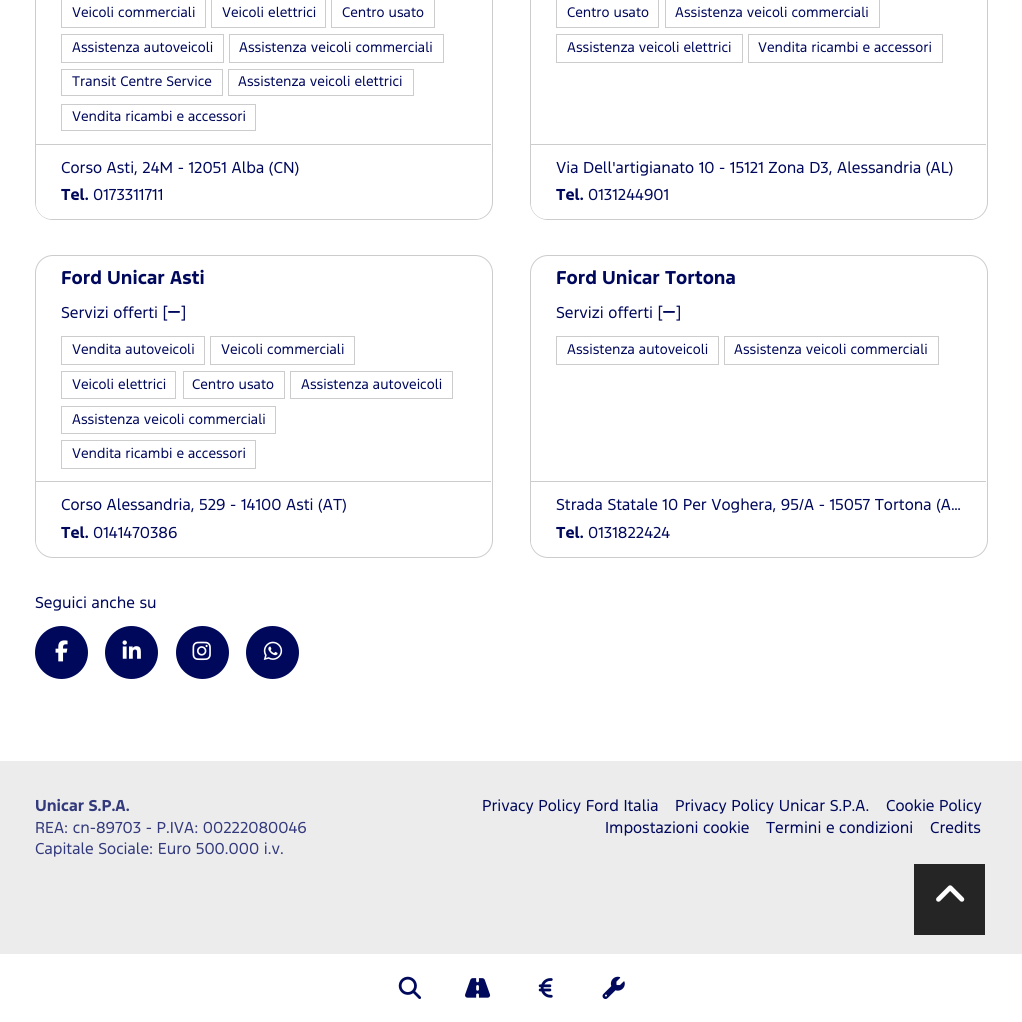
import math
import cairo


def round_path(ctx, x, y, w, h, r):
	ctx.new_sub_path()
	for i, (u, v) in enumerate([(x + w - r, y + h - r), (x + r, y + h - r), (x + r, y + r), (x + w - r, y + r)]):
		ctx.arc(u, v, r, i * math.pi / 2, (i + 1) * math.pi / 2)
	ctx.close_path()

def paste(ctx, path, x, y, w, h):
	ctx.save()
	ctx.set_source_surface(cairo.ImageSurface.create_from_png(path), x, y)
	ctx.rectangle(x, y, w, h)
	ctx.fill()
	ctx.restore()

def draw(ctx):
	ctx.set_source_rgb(1, 1, 1)
	ctx.paint()
	round_path(ctx, 35.5, -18.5, 457, 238, 17.5)
	ctx.set_source_rgb(0.8, 0.8, 0.8)
	ctx.set_line_width(1)
	ctx.stroke()
	ctx.rectangle(61.5, -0.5, 144, 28)
	ctx.stroke()
	ctx.select_font_face('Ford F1')
	ctx.set_font_size(13.1)
	ctx.set_source_rgb(0, 0.035, 0.357)
	ctx.move_to(72, 17)
	ctx.show_text('Veicoli commerciali')
	ctx.rectangle(211.5, -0.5, 114, 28)
	ctx.set_source_rgb(0.8, 0.8, 0.8)
	ctx.stroke()
	ctx.set_source_rgb(0, 0.035, 0.357)
	ctx.move_to(222, 17)
	ctx.show_text('Veicoli elettrici')
	ctx.rectangle(331.5, -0.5, 103, 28)
	ctx.set_source_rgb(0.8, 0.8, 0.8)
	ctx.stroke()
	ctx.set_source_rgb(0, 0.035, 0.357)
	ctx.move_to(342, 17)
	ctx.show_text('Centro usato')
	ctx.rectangle(61.5, 34.5, 162, 28)
	ctx.set_source_rgb(0.8, 0.8, 0.8)
	ctx.stroke()
	ctx.set_source_rgb(0, 0.035, 0.357)
	ctx.move_to(72, 52)
	ctx.show_text('Assistenza autoveicoli')
	ctx.rectangle(229.5, 34.5, 214, 28)
	ctx.set_source_rgb(0.8, 0.8, 0.8)
	ctx.stroke()
	ctx.set_source_rgb(0, 0.035, 0.357)
	ctx.move_to(239, 52)
	ctx.show_text('Assistenza veicoli commerciali')
	ctx.rectangle(61.5, 69.5, 161, 26)
	ctx.set_source_rgb(0.8, 0.8, 0.8)
	ctx.stroke()
	ctx.set_source_rgb(0, 0.035, 0.357)
	ctx.move_to(72, 86)
	ctx.show_text('Transit Centre Service')
	ctx.rectangle(228.5, 69.5, 185, 26)
	ctx.set_source_rgb(0.8, 0.8, 0.8)
	ctx.stroke()
	ctx.set_source_rgb(0, 0.035, 0.357)
	ctx.move_to(238, 86)
	ctx.show_text('Assistenza veicoli elettrici')
	ctx.rectangle(61.5, 104.5, 194, 26)
	ctx.set_source_rgb(0.8, 0.8, 0.8)
	ctx.stroke()
	ctx.set_source_rgb(0, 0.035, 0.357)
	ctx.move_to(72, 121)
	ctx.show_text('Vendita ricambi e accessori')
	ctx.set_source_rgb(1, 1, 1)
	ctx.new_path()
	ctx.move_to(36, 144)
	ctx.line_to(491, 144)
	ctx.line_to(491, 203)
	ctx.curve_to(491, 212, 484, 219, 475, 219)
	ctx.line_to(52, 219)
	ctx.curve_to(43, 219, 36, 212, 36, 203)
	ctx.close_path()
	ctx.fill()
	ctx.set_source_rgb(0.8, 0.8, 0.8)
	ctx.rectangle(36, 144, 455, 1)
	ctx.fill()
	ctx.set_font_size(14.9)
	ctx.set_source_rgb(0, 0.035, 0.357)
	ctx.move_to(61, 173)
	ctx.show_text('Corso Asti, 24M - 12051 Alba (CN)')
	ctx.select_font_face('Ford F1', cairo.FONT_SLANT_NORMAL, cairo.FONT_WEIGHT_BOLD)
	ctx.move_to(61, 200)
	ctx.show_text('Tel.')
	ctx.select_font_face('Ford F1')
	ctx.move_to(93, 200)
	ctx.show_text('0173311711')
	round_path(ctx, 530.5, -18.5, 457, 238, 17.5)
	ctx.set_source_rgb(0.8, 0.8, 0.8)
	ctx.stroke()
	ctx.rectangle(556.5, -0.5, 102, 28)
	ctx.stroke()
	ctx.set_font_size(13.1)
	ctx.set_source_rgb(0, 0.035, 0.357)
	ctx.move_to(567, 17)
	ctx.show_text('Centro usato')
	ctx.rectangle(665.5, -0.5, 214, 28)
	ctx.set_source_rgb(0.8, 0.8, 0.8)
	ctx.stroke()
	ctx.set_source_rgb(0, 0.035, 0.357)
	ctx.move_to(675, 17)
	ctx.show_text('Assistenza veicoli commerciali')
	ctx.rectangle(556.5, 34.5, 186, 28)
	ctx.set_source_rgb(0.8, 0.8, 0.8)
	ctx.stroke()
	ctx.set_source_rgb(0, 0.035, 0.357)
	ctx.move_to(567, 52)
	ctx.show_text('Assistenza veicoli elettrici')
	ctx.rectangle(748.5, 34.5, 194, 28)
	ctx.set_source_rgb(0.8, 0.8, 0.8)
	ctx.stroke()
	ctx.set_source_rgb(0, 0.035, 0.357)
	ctx.move_to(758, 52)
	ctx.show_text('Vendita ricambi e accessori')
	ctx.set_source_rgb(1, 1, 1)
	ctx.new_path()
	ctx.move_to(531, 144)
	ctx.line_to(986, 144)
	ctx.line_to(986, 203)
	ctx.curve_to(986, 212, 979, 219, 970, 219)
	ctx.line_to(547, 219)
	ctx.curve_to(538, 219, 531, 212, 531, 203)
	ctx.close_path()
	ctx.fill()
	ctx.set_source_rgb(0.8, 0.8, 0.8)
	ctx.rectangle(531, 144, 455, 1)
	ctx.fill()
	ctx.set_font_size(14.9)
	ctx.set_source_rgb(0, 0.035, 0.357)
	ctx.move_to(556, 173)
	ctx.show_text('Via Dell\'artigianato 10 - 15121 Zona D3, Alessandria (AL)')
	ctx.select_font_face('Ford F1', cairo.FONT_SLANT_NORMAL, cairo.FONT_WEIGHT_BOLD)
	ctx.move_to(556, 200)
	ctx.show_text('Tel.')
	ctx.select_font_face('Ford F1')
	ctx.move_to(588, 200)
	ctx.show_text('0131244901')
	round_path(ctx, 35.5, 255.5, 457, 302, 17.5)
	ctx.set_source_rgb(0.8, 0.8, 0.8)
	ctx.stroke()
	ctx.select_font_face('Ford F1', cairo.FONT_SLANT_NORMAL, cairo.FONT_WEIGHT_BOLD)
	ctx.set_font_size(17.5)
	ctx.set_source_rgb(0, 0.035, 0.357)
	ctx.move_to(61, 284)
	ctx.show_text('Ford Unicar Asti')
	ctx.select_font_face('Ford F1')
	ctx.set_font_size(14.9)
	ctx.move_to(61, 318)
	ctx.show_text('Servizi offerti [')
	paste(ctx, 'media/1.png', 168, 311, 12, 2)
	ctx.move_to(181, 318)
	ctx.show_text(']')
	ctx.rectangle(61.5, 336.5, 143, 28)
	ctx.set_source_rgb(0.8, 0.8, 0.8)
	ctx.stroke()
	ctx.set_font_size(13.1)
	ctx.set_source_rgb(0, 0.035, 0.357)
	ctx.move_to(72, 354)
	ctx.show_text('Vendita autoveicoli')
	ctx.rectangle(210.5, 336.5, 144, 28)
	ctx.set_source_rgb(0.8, 0.8, 0.8)
	ctx.stroke()
	ctx.set_source_rgb(0, 0.035, 0.357)
	ctx.move_to(221, 354)
	ctx.show_text('Veicoli commerciali')
	ctx.rectangle(61.5, 371.5, 114, 27)
	ctx.set_source_rgb(0.8, 0.8, 0.8)
	ctx.stroke()
	ctx.set_source_rgb(0, 0.035, 0.357)
	ctx.move_to(72, 389)
	ctx.show_text('Veicoli elettrici')
	ctx.rectangle(183.5, 371.5, 101, 27)
	ctx.set_source_rgb(0.8, 0.8, 0.8)
	ctx.stroke()
	ctx.set_source_rgb(0, 0.035, 0.357)
	ctx.move_to(192, 389)
	ctx.show_text('Centro usato')
	ctx.rectangle(290.5, 371.5, 162, 27)
	ctx.set_source_rgb(0.8, 0.8, 0.8)
	ctx.stroke()
	ctx.set_source_rgb(0, 0.035, 0.357)
	ctx.move_to(301, 389)
	ctx.show_text('Assistenza autoveicoli')
	ctx.rectangle(61.5, 406.5, 214, 27)
	ctx.set_source_rgb(0.8, 0.8, 0.8)
	ctx.stroke()
	ctx.set_source_rgb(0, 0.035, 0.357)
	ctx.move_to(72, 424)
	ctx.show_text('Assistenza veicoli commerciali')
	ctx.rectangle(61.5, 440.5, 194, 28)
	ctx.set_source_rgb(0.8, 0.8, 0.8)
	ctx.stroke()
	ctx.set_source_rgb(0, 0.035, 0.357)
	ctx.move_to(72, 458)
	ctx.show_text('Vendita ricambi e accessori')
	ctx.set_source_rgb(1, 1, 1)
	ctx.new_path()
	ctx.move_to(36, 481)
	ctx.line_to(491, 481)
	ctx.line_to(491, 540)
	ctx.curve_to(491, 549, 484, 556, 475, 556)
	ctx.line_to(52, 556)
	ctx.curve_to(43, 556, 36, 549, 36, 540)
	ctx.close_path()
	ctx.fill()
	ctx.set_source_rgb(0.8, 0.8, 0.8)
	ctx.rectangle(36, 481, 455, 1)
	ctx.fill()
	ctx.set_font_size(14.9)
	ctx.set_source_rgb(0, 0.035, 0.357)
	ctx.move_to(61, 510)
	ctx.show_text('Corso Alessandria, 529 - 14100 Asti (AT)')
	ctx.select_font_face('Ford F1', cairo.FONT_SLANT_NORMAL, cairo.FONT_WEIGHT_BOLD)
	ctx.move_to(61, 538)
	ctx.show_text('Tel.')
	ctx.select_font_face('Ford F1')
	ctx.move_to(93, 538)
	ctx.show_text('0141470386')
	round_path(ctx, 530.5, 255.5, 457, 302, 17.5)
	ctx.set_source_rgb(0.8, 0.8, 0.8)
	ctx.stroke()
	ctx.select_font_face('Ford F1', cairo.FONT_SLANT_NORMAL, cairo.FONT_WEIGHT_BOLD)
	ctx.set_font_size(17.5)
	ctx.set_source_rgb(0, 0.035, 0.357)
	ctx.move_to(556, 284)
	ctx.show_text('Ford Unicar Tortona')
	ctx.select_font_face('Ford F1')
	ctx.set_font_size(14.9)
	ctx.move_to(556, 318)
	ctx.show_text('Servizi offerti [')
	paste(ctx, 'media/1.png', 663, 311, 12, 2)
	ctx.move_to(676, 318)
	ctx.show_text(']')
	ctx.rectangle(556.5, 336.5, 162, 28)
	ctx.set_source_rgb(0.8, 0.8, 0.8)
	ctx.stroke()
	ctx.set_font_size(13.1)
	ctx.set_source_rgb(0, 0.035, 0.357)
	ctx.move_to(567, 354)
	ctx.show_text('Assistenza autoveicoli')
	ctx.rectangle(724.5, 336.5, 214, 28)
	ctx.set_source_rgb(0.8, 0.8, 0.8)
	ctx.stroke()
	ctx.set_source_rgb(0, 0.035, 0.357)
	ctx.move_to(734, 354)
	ctx.show_text('Assistenza veicoli commerciali')
	ctx.set_source_rgb(1, 1, 1)
	ctx.new_path()
	ctx.move_to(531, 481)
	ctx.line_to(986, 481)
	ctx.line_to(986, 540)
	ctx.curve_to(986, 549, 979, 556, 970, 556)
	ctx.line_to(547, 556)
	ctx.curve_to(538, 556, 531, 549, 531, 540)
	ctx.close_path()
	ctx.fill()
	ctx.set_source_rgb(0.8, 0.8, 0.8)
	ctx.rectangle(531, 481, 455, 1)
	ctx.fill()
	ctx.set_font_size(14.9)
	ctx.set_source_rgb(0, 0.035, 0.357)
	ctx.move_to(556, 510)
	ctx.show_text('Strada Statale 10 Per Voghera, 95/A - 15057 Tortona (A…')
	ctx.select_font_face('Ford F1', cairo.FONT_SLANT_NORMAL, cairo.FONT_WEIGHT_BOLD)
	ctx.move_to(556, 538)
	ctx.show_text('Tel.')
	ctx.select_font_face('Ford F1')
	ctx.move_to(588, 538)
	ctx.show_text('0131822424')
	ctx.move_to(35, 608)
	ctx.show_text('Seguici anche su')
	ctx.new_path()
	ctx.arc(61.5, 652.5, 26.5, 0, 2 * math.pi)
	ctx.fill()
	paste(ctx, 'media/2.png', 55, 640, 13, 22)
	ctx.arc(131.5, 652.5, 26.5, 0, 2 * math.pi)
	ctx.fill()
	paste(ctx, 'media/3.png', 122, 640, 19, 19)
	ctx.arc(202.5, 652.5, 26.5, 0, 2 * math.pi)
	ctx.fill()
	paste(ctx, 'media/4.png', 192, 641, 19, 20)
	ctx.arc(272.5, 652.5, 26.5, 0, 2 * math.pi)
	ctx.fill()
	paste(ctx, 'media/5.png', 263, 641, 20, 19)
	ctx.set_source_rgb(0.922, 0.922, 0.922)
	ctx.rectangle(0, 761, 1022, 193)
	ctx.fill()
	ctx.select_font_face('Ford F1', cairo.FONT_SLANT_NORMAL, cairo.FONT_WEIGHT_BOLD)
	ctx.set_source_rgb(0.2, 0.227, 0.486)
	ctx.move_to(35, 811)
	ctx.show_text('Unicar S.P.A.')
	ctx.select_font_face('Ford F1')
	ctx.move_to(35, 833)
	ctx.show_text('REA: cn-89703 - P.IVA: 00222080046')
	ctx.move_to(35, 854)
	ctx.show_text('Capitale Sociale: Euro 500.000 i.v.')
	ctx.set_source_rgb(0, 0.035, 0.357)
	for x, y, s in [
		(482, 811, 'Privacy Policy Ford Italia'),
		(675, 811, 'Privacy Policy Unicar S.P.A.'),
		(886, 811, 'Cookie Policy'),
		(605, 833, 'Impostazioni cookie'),
		(766, 833, 'Termini e condizioni'),
		(930, 833, 'Credits'),
	]:
		ctx.move_to(x, y)
		ctx.show_text(s)
	ctx.set_source_rgb(0.145, 0.145, 0.145)
	ctx.rectangle(914, 864, 71, 71)
	ctx.fill()
	paste(ctx, 'media/6.png', 936, 885, 29, 17)
	paste(ctx, 'media/7.png', 398, 976, 23, 23)
	paste(ctx, 'media/8.png', 465, 978, 26, 20)
	paste(ctx, 'media/9.png', 538, 978, 15, 20)
	paste(ctx, 'media/10.png', 602, 976, 23, 23)


surface = cairo.ImageSurface(cairo.FORMAT_RGB24, 1022, 1022)
ctx = cairo.Context(surface)
options = cairo.FontOptions()
options.set_hint_metrics(cairo.HINT_METRICS_OFF)
options.set_hint_style(cairo.HINT_STYLE_NONE)
ctx.set_font_options(options)
ctx.set_miter_limit(4)
draw(ctx)
surface.write_to_png('image.png')
